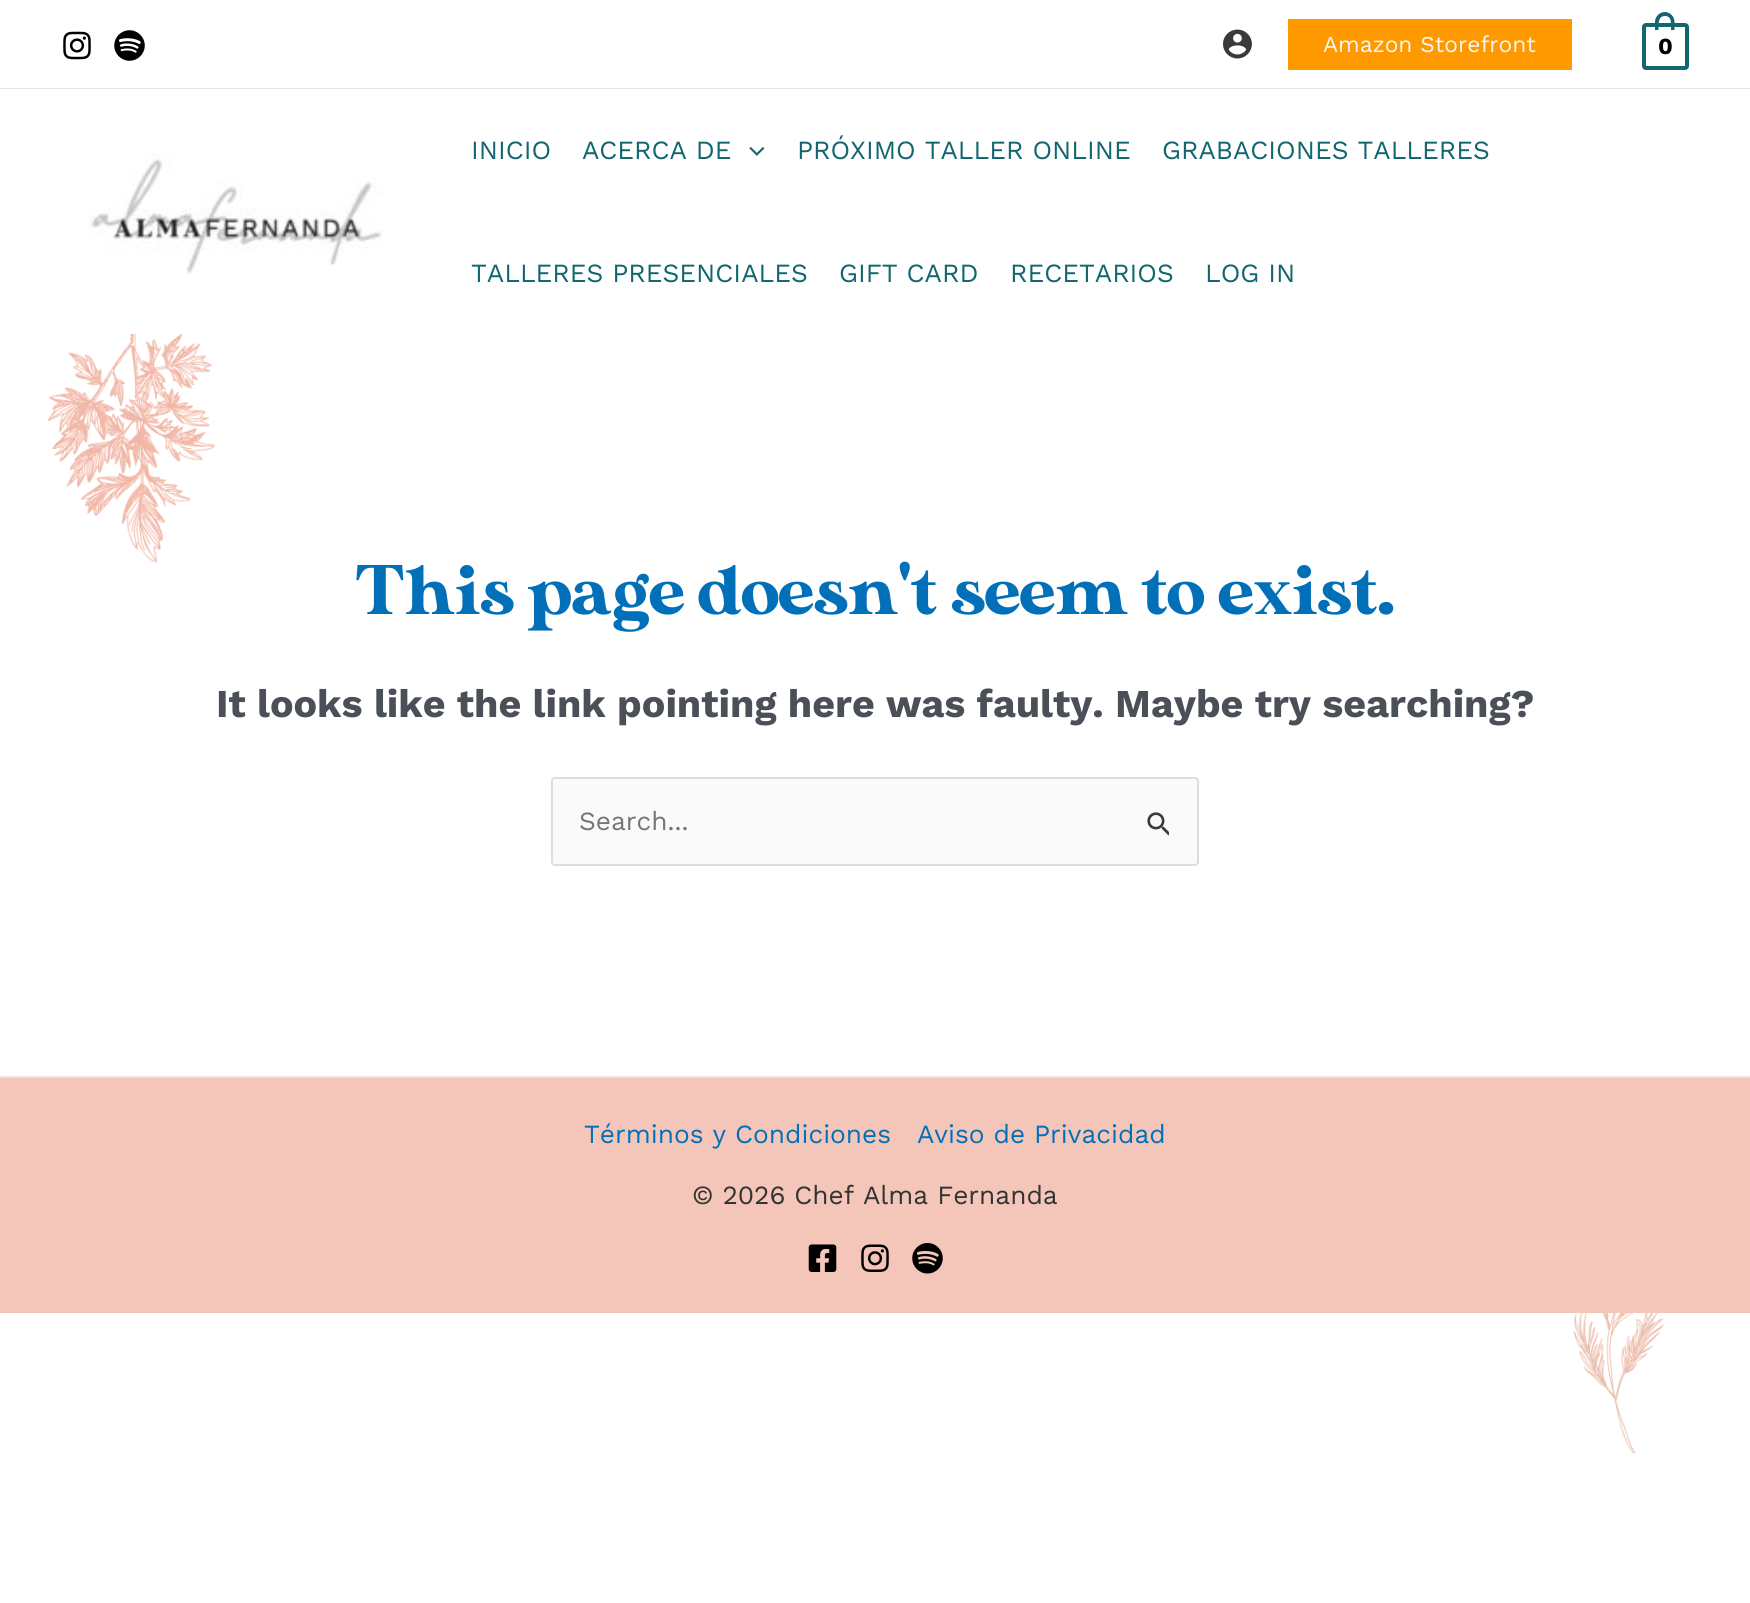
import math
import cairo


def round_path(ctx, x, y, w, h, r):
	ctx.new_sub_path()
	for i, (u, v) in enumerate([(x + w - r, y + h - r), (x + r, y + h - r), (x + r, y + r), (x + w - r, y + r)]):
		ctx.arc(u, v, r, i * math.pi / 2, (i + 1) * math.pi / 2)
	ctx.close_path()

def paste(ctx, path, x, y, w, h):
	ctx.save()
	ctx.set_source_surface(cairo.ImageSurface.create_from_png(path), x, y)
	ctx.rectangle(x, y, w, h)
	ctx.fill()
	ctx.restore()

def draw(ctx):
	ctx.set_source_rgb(1, 1, 1)
	ctx.paint()
	paste(ctx, 'media/1.png', 47, 334, 1617, 1120)
	ctx.set_source_rgb(0.898, 0.898, 0.898)
	ctx.rectangle(0, 88, 1750, 1)
	ctx.fill()
	paste(ctx, 'media/2.png', 63, 31, 28, 29)
	paste(ctx, 'media/3.png', 114, 30, 31, 31)
	paste(ctx, 'media/4.png', 1223, 29, 29, 30)
	ctx.set_source_rgb(1, 0.6, 0)
	ctx.rectangle(1288, 19, 284, 51)
	ctx.fill()
	ctx.select_font_face('Work Sans')
	ctx.set_font_size(22.75)
	ctx.set_source_rgb(0.961, 0.961, 0.961)
	ctx.move_to(1323, 52)
	ctx.show_text('Amazon Storefront')
	round_path(ctx, 1644, 25, 43, 43, 2)
	ctx.set_source_rgb(0.067, 0.4, 0.439)
	ctx.set_line_width(4)
	ctx.stroke()
	ctx.set_fill_rule(cairo.FILL_RULE_EVEN_ODD)
	ctx.new_path()
	ctx.move_to(1665, 12)
	ctx.curve_to(1670, 12, 1674.5, 16.5, 1674.5, 22)
	ctx.line_to(1674.5, 30)
	ctx.line_to(1655, 30)
	ctx.line_to(1655, 22)
	ctx.curve_to(1655, 16.5, 1659.5, 12, 1665, 12)
	ctx.close_path()
	ctx.move_to(1665, 16)
	ctx.curve_to(1672.5, 16, 1671, 25, 1671, 30)
	ctx.line_to(1658.5, 30)
	ctx.curve_to(1658.5, 25, 1657.5, 16, 1665, 16)
	ctx.close_path()
	ctx.fill()
	ctx.select_font_face('Work Sans', cairo.FONT_SLANT_NORMAL, cairo.FONT_WEIGHT_BOLD)
	ctx.set_font_size(23)
	ctx.set_source_rgb(0, 0, 0)
	ctx.move_to(1658, 54)
	ctx.show_text('0')
	paste(ctx, 'media/5.png', 89, 153, 293, 121)
	ctx.select_font_face('Work Sans')
	ctx.set_font_size(26.25)
	ctx.set_source_rgb(0.067, 0.4, 0.439)
	ctx.move_to(471, 159)
	ctx.show_text('INICIO')
	ctx.move_to(582, 159)
	ctx.show_text('ACERCA DE')
	paste(ctx, 'media/6.png', 749, 146, 16, 10)
	for x, y, s in [
		(797, 159, 'PRÓXIMO TALLER ONLINE'),
		(1162, 159, 'GRABACIONES TALLERES'),
		(471, 282, 'TALLERES PRESENCIALES'),
		(839, 282, 'GIFT CARD'),
		(1010, 282, 'RECETARIOS'),
		(1205, 282, 'LOG IN'),
	]:
		ctx.move_to(x, y)
		ctx.show_text(s)
	ctx.select_font_face('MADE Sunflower')
	ctx.set_font_size(70)
	ctx.set_source_rgb(0.004, 0.439, 0.725)
	ctx.move_to(355, 614)
	ctx.show_text('This page doesn\'t seem to exist.')
	ctx.select_font_face('Work Sans', cairo.FONT_SLANT_NORMAL, cairo.FONT_WEIGHT_BOLD)
	ctx.set_font_size(39.4)
	ctx.set_source_rgb(0.294, 0.31, 0.345)
	ctx.move_to(216, 717)
	ctx.show_text('It looks like the link pointing here was faulty. Maybe try searching?')
	ctx.set_source_rgb(0.98, 0.98, 0.98)
	round_path(ctx, 552, 778, 646, 87, 3)
	ctx.fill_preserve()
	ctx.set_source_rgb(0.867, 0.867, 0.867)
	ctx.set_line_width(2)
	ctx.stroke()
	ctx.select_font_face('Work Sans')
	ctx.set_font_size(26.25)
	ctx.set_source_rgb(0.459, 0.459, 0.459)
	ctx.move_to(579, 830)
	ctx.show_text('Search...')
	paste(ctx, 'media/7.png', 1147, 812, 22, 24)
	ctx.set_source_rgb(0.957, 0.776, 0.725)
	ctx.rectangle(0, 1078, 1750, 235)
	ctx.fill()
	ctx.set_source_rgb(0.898, 0.898, 0.898)
	ctx.rectangle(0, 1076, 1750, 2)
	ctx.fill()
	ctx.set_source_rgb(0.004, 0.439, 0.725)
	ctx.move_to(584, 1143)
	ctx.show_text('Términos y Condiciones')
	ctx.move_to(917, 1143)
	ctx.show_text('Aviso de Privacidad')
	ctx.set_source_rgb(0.2, 0.2, 0.2)
	ctx.move_to(692, 1204)
	ctx.show_text('© 2026 Chef Alma Fernanda')
	paste(ctx, 'media/8.png', 808, 1244, 29, 28)
	paste(ctx, 'media/9.png', 861, 1244, 28, 28)
	paste(ctx, 'media/10.png', 912, 1243, 31, 31)


surface = cairo.ImageSurface(cairo.FORMAT_RGB24, 1750, 1603)
ctx = cairo.Context(surface)
options = cairo.FontOptions()
options.set_hint_metrics(cairo.HINT_METRICS_OFF)
options.set_hint_style(cairo.HINT_STYLE_NONE)
ctx.set_font_options(options)
ctx.set_miter_limit(4)
draw(ctx)
surface.write_to_png('image.png')
